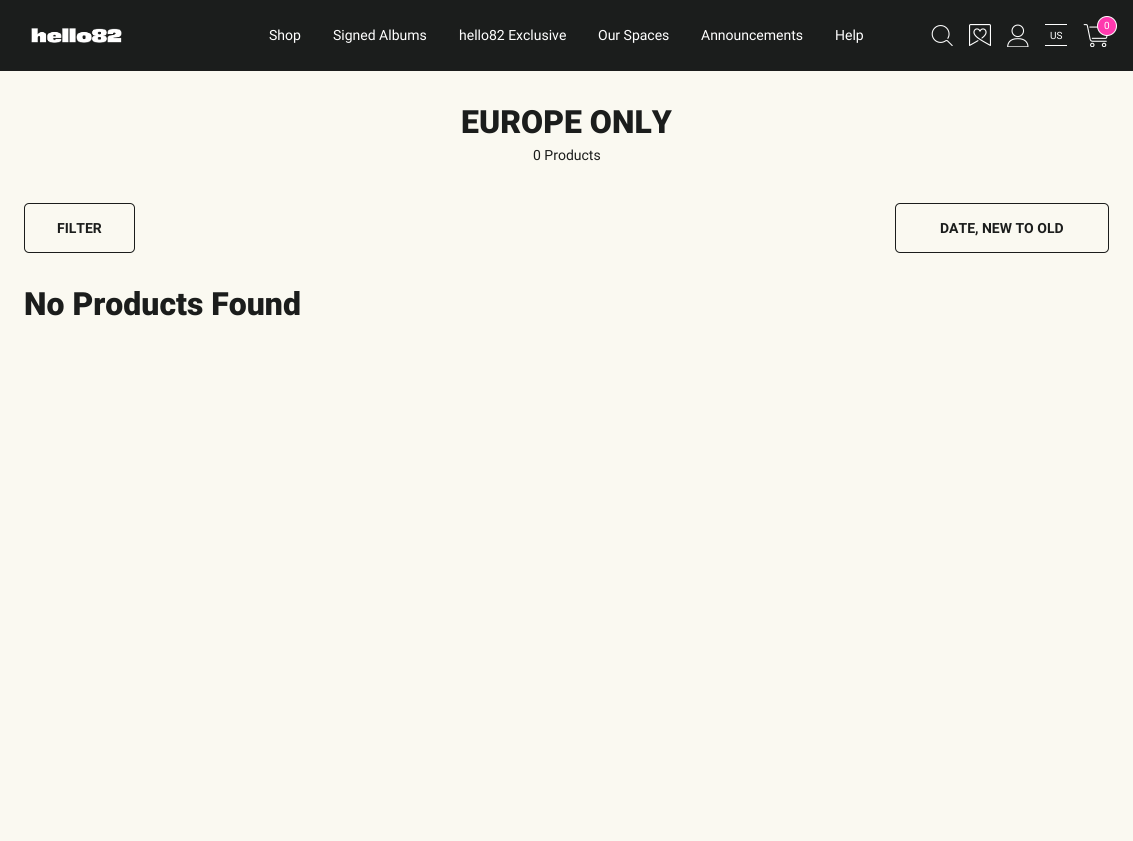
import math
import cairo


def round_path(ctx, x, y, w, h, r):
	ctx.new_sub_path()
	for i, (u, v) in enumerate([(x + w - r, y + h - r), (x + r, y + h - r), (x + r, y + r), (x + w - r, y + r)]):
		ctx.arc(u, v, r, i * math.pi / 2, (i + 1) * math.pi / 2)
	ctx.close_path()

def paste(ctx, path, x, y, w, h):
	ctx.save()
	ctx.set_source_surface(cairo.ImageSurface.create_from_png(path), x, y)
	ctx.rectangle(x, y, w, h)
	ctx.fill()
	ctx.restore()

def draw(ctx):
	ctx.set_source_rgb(0.98, 0.976, 0.945)
	ctx.paint()
	ctx.set_source_rgb(0.106, 0.114, 0.11)
	ctx.rectangle(0, 0, 1133, 71)
	ctx.fill()
	paste(ctx, 'media/1.png', 31, 28, 91, 15)
	ctx.select_font_face('Roboto')
	ctx.set_font_size(14)
	ctx.set_source_rgb(1, 1, 1)
	for x, y, s in [
		(269, 40, 'Shop'),
		(333, 40, 'Signed Albums'),
		(459, 40, 'hello82 Exclusive'),
		(598, 40, 'Our Spaces'),
		(701, 40, 'Announcements'),
		(835, 40, 'Help'),
	]:
		ctx.move_to(x, y)
		ctx.show_text(s)
	paste(ctx, 'media/2.png', 931, 25, 22, 21)
	paste(ctx, 'media/3.png', 969, 24, 22, 22)
	paste(ctx, 'media/4.png', 1007, 24, 22, 23)
	ctx.rectangle(1045, 24, 22, 1)
	ctx.fill()
	ctx.rectangle(1045, 45, 22, 1)
	ctx.fill()
	ctx.set_font_size(10)
	ctx.move_to(1050, 39)
	ctx.show_text('US')
	paste(ctx, 'media/5.png', 1083, 24, 25, 23)
	ctx.set_source_rgb(1, 0.224, 0.682)
	ctx.arc(1107, 26, 9.5, 0, 2 * math.pi)
	ctx.fill_preserve()
	ctx.set_source_rgb(1, 1, 1)
	ctx.set_line_width(1)
	ctx.stroke()
	ctx.move_to(1104, 29)
	ctx.show_text('0')
	ctx.select_font_face('Roboto Black')
	ctx.set_font_size(32)
	ctx.set_source_rgb(0.106, 0.114, 0.11)
	ctx.move_to(461, 133)
	ctx.show_text('EUROPE ONLY')
	ctx.select_font_face('Roboto')
	ctx.set_font_size(14)
	ctx.move_to(533, 160)
	ctx.show_text('0 Products')
	round_path(ctx, 24.5, 203.5, 110, 49, 4.5)
	ctx.stroke()
	ctx.select_font_face('Roboto', cairo.FONT_SLANT_NORMAL, cairo.FONT_WEIGHT_BOLD)
	ctx.move_to(57, 233)
	ctx.show_text('FILTER')
	round_path(ctx, 895.5, 203.5, 213, 49, 4.5)
	ctx.stroke()
	ctx.move_to(940, 233)
	ctx.show_text('DATE, NEW TO OLD')
	ctx.select_font_face('Roboto Black')
	ctx.set_font_size(32)
	ctx.move_to(24, 315)
	ctx.show_text('No Products Found')


surface = cairo.ImageSurface(cairo.FORMAT_RGB24, 1133, 841)
ctx = cairo.Context(surface)
options = cairo.FontOptions()
options.set_hint_metrics(cairo.HINT_METRICS_OFF)
options.set_hint_style(cairo.HINT_STYLE_NONE)
ctx.set_font_options(options)
ctx.set_miter_limit(4)
draw(ctx)
surface.write_to_png('image.png')
